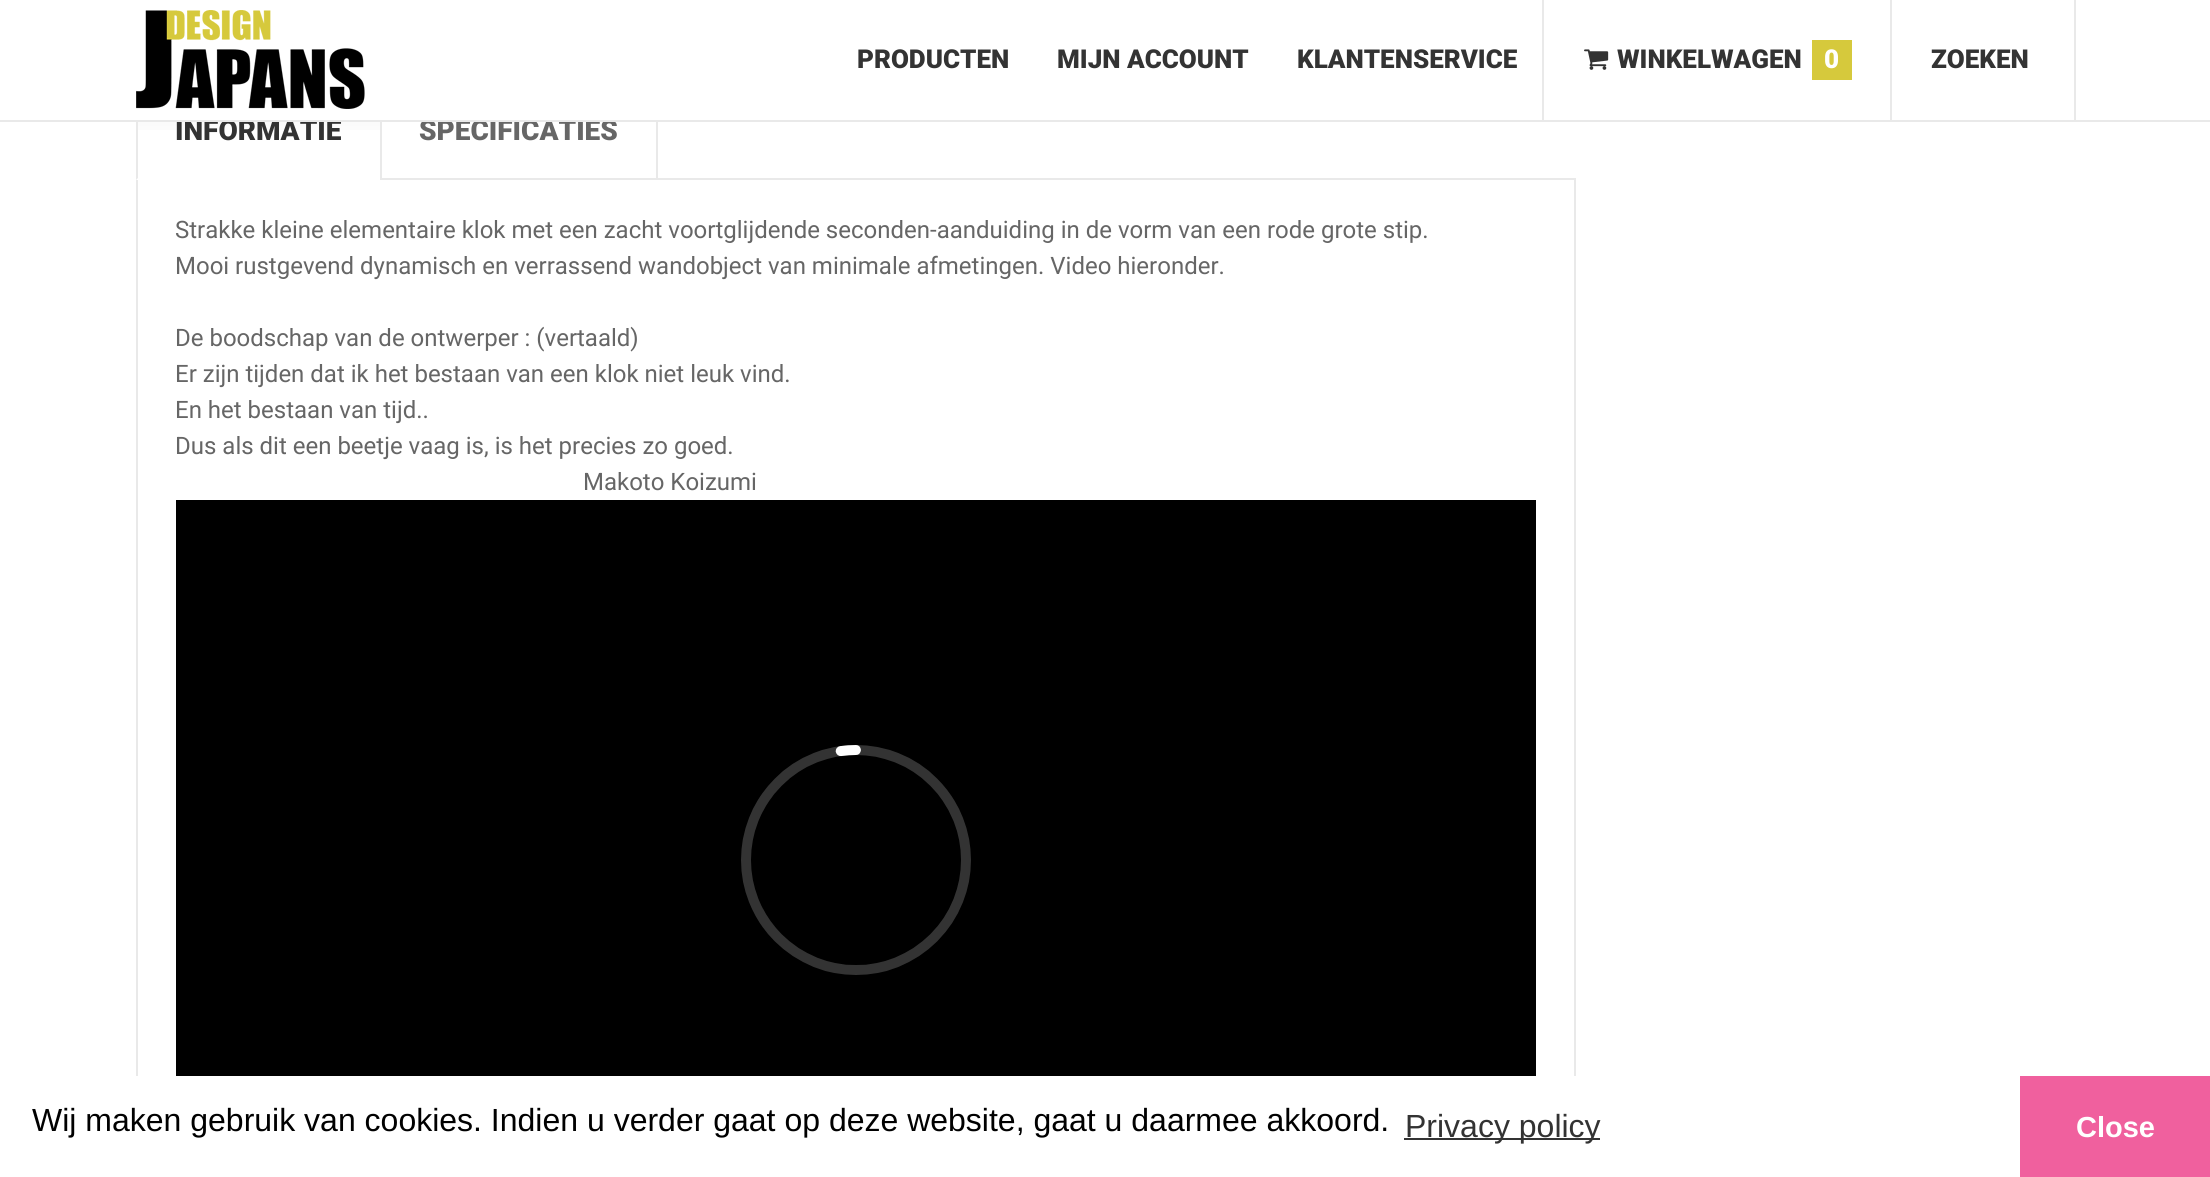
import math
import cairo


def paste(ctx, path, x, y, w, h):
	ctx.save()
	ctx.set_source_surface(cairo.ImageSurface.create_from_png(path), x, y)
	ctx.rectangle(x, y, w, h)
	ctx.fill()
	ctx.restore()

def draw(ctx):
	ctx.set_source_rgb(1, 1, 1)
	ctx.paint()
	ctx.rectangle(137, 179, 1438, 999)
	ctx.set_source_rgb(0.914, 0.914, 0.914)
	ctx.stroke()
	ctx.set_source_rgb(1, 1, 1)
	ctx.rectangle(136, 178, 246, 2)
	ctx.fill()
	ctx.set_source_rgb(0.914, 0.914, 0.914)
	ctx.new_path()
	ctx.move_to(136, 180)
	ctx.line_to(136, 76)
	ctx.line_to(138, 82)
	ctx.line_to(138, 178)
	ctx.close_path()
	ctx.fill()
	gradient = cairo.LinearGradient(259, 82, 259, 178)
	gradient.add_color_stop_rgba(0, 0.941, 0.941, 0.941, 1)
	gradient.add_color_stop_rgba(0.6, 1, 1, 1, 1)
	ctx.set_source(gradient)
	ctx.rectangle(138, 122, 242, 8)
	ctx.fill()
	ctx.select_font_face('Roboto Black')
	ctx.set_font_size(28)
	ctx.set_source_rgb(0.2, 0.2, 0.2)
	ctx.move_to(175, 140)
	ctx.show_text('INFORMATIE')
	ctx.rectangle(381, 81, 276, 98)
	ctx.set_source_rgb(0.914, 0.914, 0.914)
	ctx.stroke()
	ctx.set_source_rgb(0.4, 0.4, 0.4)
	ctx.move_to(419, 140)
	ctx.show_text('SPECIFICATIES')
	ctx.set_source_rgb(0.914, 0.914, 0.914)
	ctx.rectangle(0, 120, 2210, 2)
	ctx.fill()
	ctx.set_source_rgb(1, 1, 1)
	ctx.rectangle(136, 76, 522, 44)
	ctx.fill()
	paste(ctx, 'media/1.png', 136, 10, 229, 99)
	ctx.set_font_size(26)
	ctx.set_source_rgb(0.2, 0.2, 0.2)
	for x, y, s in [
		(857, 68, 'PRODUCTEN'),
		(1057, 68, 'MIJN ACCOUNT'),
		(1297, 68, 'KLANTENSERVICE'),
	]:
		ctx.move_to(x, y)
		ctx.show_text(s)
	ctx.set_source_rgb(0.914, 0.914, 0.914)
	ctx.rectangle(1542, 0, 2, 120)
	ctx.fill()
	paste(ctx, 'media/2.png', 1584, 49, 25, 21)
	ctx.set_source_rgb(0.2, 0.2, 0.2)
	ctx.move_to(1617, 68)
	ctx.show_text('WINKELWAGEN')
	ctx.set_source_rgb(0.839, 0.788, 0.235)
	ctx.rectangle(1812, 40, 40, 40)
	ctx.fill()
	ctx.set_source_rgb(1, 1, 1)
	ctx.move_to(1824, 68)
	ctx.show_text('0')
	ctx.set_source_rgb(0.914, 0.914, 0.914)
	ctx.rectangle(2074, 0, 2, 120)
	ctx.fill()
	ctx.rectangle(1890, 0, 2, 120)
	ctx.fill()
	ctx.set_source_rgb(0.2, 0.2, 0.2)
	ctx.move_to(1931, 68)
	ctx.show_text('ZOEKEN')
	ctx.select_font_face('Roboto')
	ctx.set_font_size(24)
	ctx.set_source_rgb(0.4, 0.4, 0.4)
	for x, y, s in [
		(175, 238, 'Strakke kleine elementaire klok met een zacht voortglijdende seconden-aanduiding in de vorm van een rode grote stip.'),
		(175, 274, 'Mooi rustgevend dynamisch en verrassend wandobject van minimale afmetingen. Video hieronder.'),
		(175, 346, 'De boodschap van de ontwerper : (vertaald)'),
		(175, 382, 'Er zijn tijden dat ik het bestaan van een klok niet leuk vind.'),
		(175, 418, 'En het bestaan van tijd..'),
		(175, 454, 'Dus als dit een beetje vaag is, is het precies zo goed.'),
		(583, 490, 'Makoto Koizumi'),
	]:
		ctx.move_to(x, y)
		ctx.show_text(s)
	paste(ctx, 'media/3.png', 176, 500, 1360, 576)
	ctx.set_source_rgb(1, 1, 1)
	ctx.rectangle(136, 1076, 1440, 101)
	ctx.fill()
	ctx.select_font_face('Liberation Sans')
	ctx.set_font_size(32)
	ctx.set_source_rgb(0, 0, 0)
	ctx.move_to(32, 1131)
	ctx.show_text('Wij maken gebruik van cookies. Indien u verder gaat op deze website, gaat u daarmee akkoord.')
	ctx.set_source_rgb(0.2, 0.2, 0.2)
	ctx.rectangle(1404, 1138, 196, 2)
	ctx.fill()
	ctx.move_to(1405, 1137)
	ctx.show_text('Privacy policy')
	ctx.set_source_rgb(0.941, 0.376, 0.62)
	ctx.rectangle(2020, 1076, 190, 101)
	ctx.fill()
	ctx.select_font_face('Liberation Sans', cairo.FONT_SLANT_NORMAL, cairo.FONT_WEIGHT_BOLD)
	ctx.set_font_size(29)
	ctx.set_source_rgb(1, 1, 1)
	ctx.move_to(2076, 1137)
	ctx.show_text('Close')


surface = cairo.ImageSurface(cairo.FORMAT_RGB24, 2210, 1177)
ctx = cairo.Context(surface)
options = cairo.FontOptions()
options.set_hint_metrics(cairo.HINT_METRICS_OFF)
options.set_hint_style(cairo.HINT_STYLE_NONE)
ctx.set_font_options(options)
ctx.set_miter_limit(4)
draw(ctx)
surface.write_to_png('image.png')
